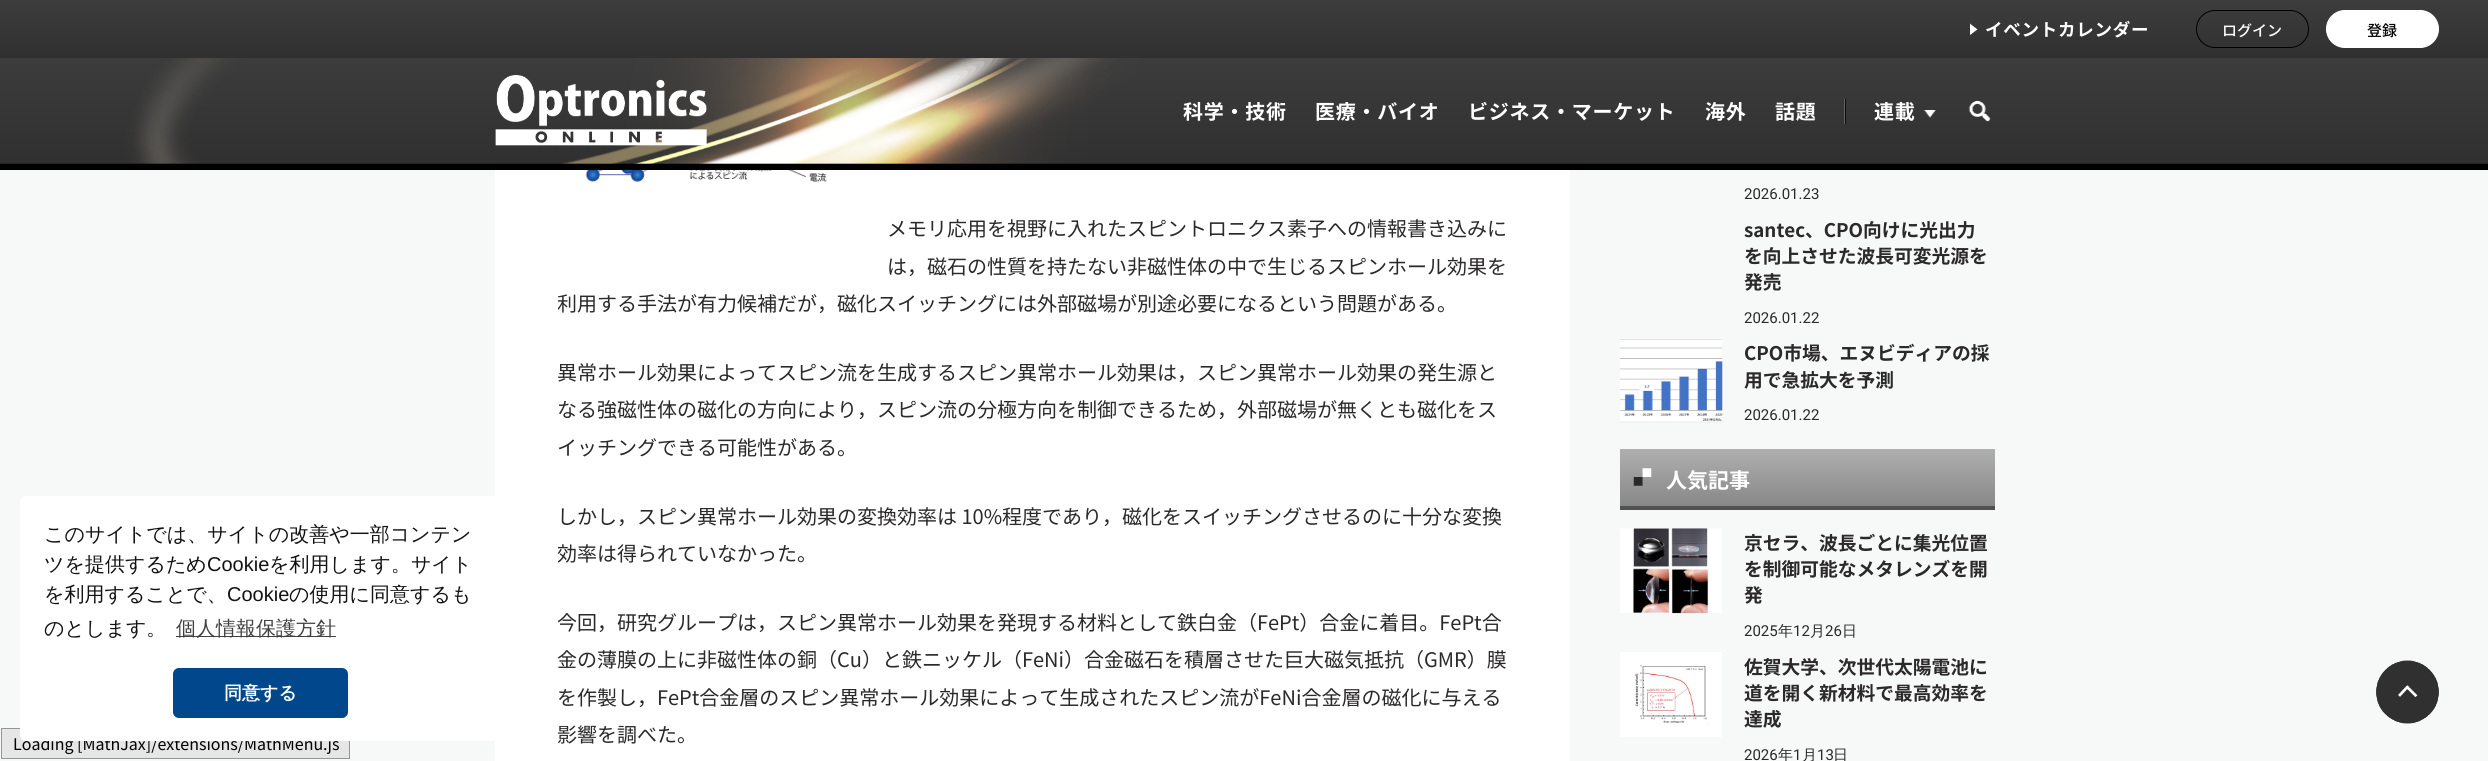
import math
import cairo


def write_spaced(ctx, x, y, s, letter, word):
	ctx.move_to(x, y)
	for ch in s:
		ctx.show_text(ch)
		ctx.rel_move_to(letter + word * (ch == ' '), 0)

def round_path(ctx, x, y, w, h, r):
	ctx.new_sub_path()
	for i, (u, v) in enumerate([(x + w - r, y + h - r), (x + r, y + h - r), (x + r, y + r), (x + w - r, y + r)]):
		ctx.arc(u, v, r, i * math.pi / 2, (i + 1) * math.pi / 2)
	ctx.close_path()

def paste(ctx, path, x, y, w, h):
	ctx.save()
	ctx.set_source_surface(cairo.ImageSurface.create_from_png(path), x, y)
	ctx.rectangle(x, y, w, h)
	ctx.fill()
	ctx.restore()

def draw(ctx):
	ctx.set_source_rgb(0.965, 0.969, 0.969)
	ctx.paint()
	ctx.set_source_rgb(1, 1, 1)
	ctx.rectangle(495, 170, 1075, 591)
	ctx.fill()
	ctx.set_source_rgb(0.902, 0.902, 0.902)
	ctx.rectangle(1.5, 728.5, 348, 30)
	ctx.fill_preserve()
	ctx.set_source_rgb(0.584, 0.584, 0.584)
	ctx.set_line_width(1)
	ctx.stroke()
	ctx.select_font_face('Noto Sans JP')
	ctx.set_font_size(16)
	ctx.set_source_rgb(0, 0, 0)
	ctx.move_to(13, 750)
	ctx.show_text('Loading [MathJax]/extensions/MathMenu.js')
	ctx.set_source_rgb(1, 1, 1)
	round_path(ctx, 20, 496, 480, 245, 6)
	ctx.fill()
	ctx.select_font_face('WenQuanYi Zen Hei Medium')
	ctx.set_font_size(20)
	ctx.set_source_rgb(0.071, 0.071, 0.071)
	ctx.move_to(44, 541)
	ctx.show_text('このサイトでは、サイトの改善や一部コンテン')
	ctx.move_to(44, 571)
	ctx.show_text('ツを提供するため')
	ctx.select_font_face('Liberation Sans')
	ctx.move_to(207, 571)
	ctx.show_text('Cookie')
	ctx.select_font_face('WenQuanYi Zen Hei Medium')
	ctx.move_to(269, 571)
	ctx.show_text('を利用します。サイト')
	ctx.move_to(44, 601)
	ctx.show_text('を利用することで、')
	ctx.select_font_face('Liberation Sans')
	ctx.move_to(227, 601)
	ctx.show_text('Cookie')
	ctx.select_font_face('WenQuanYi Zen Hei Medium')
	ctx.move_to(289, 601)
	ctx.show_text('の使用に同意するも')
	ctx.move_to(44, 635)
	ctx.show_text('のとします。')
	ctx.set_source_rgb(0.255, 0.255, 0.255)
	ctx.rectangle(176, 636, 160, 1)
	ctx.fill()
	ctx.move_to(176, 635)
	ctx.show_text('個人情報保護方針')
	ctx.set_source_rgb(0, 0.278, 0.545)
	round_path(ctx, 173, 668, 175, 50, 6)
	ctx.fill()
	ctx.select_font_face('WenQuanYi Zen Hei', cairo.FONT_SLANT_NORMAL, cairo.FONT_WEIGHT_BOLD)
	ctx.set_font_size(18)
	ctx.set_source_rgb(1, 1, 1)
	ctx.move_to(224, 699)
	ctx.show_text('同意する')
	ctx.set_source_rgb(0, 0, 0)
	ctx.rectangle(0, 163, 2488, 7)
	ctx.fill()
	gradient = cairo.LinearGradient(1244, 0, 1244, 58)
	gradient.add_color_stop_rgba(0, 0.239, 0.239, 0.239, 1)
	gradient.add_color_stop_rgba(1, 0.188, 0.188, 0.188, 1)
	ctx.set_source(gradient)
	ctx.rectangle(0, 0, 2488, 58)
	ctx.fill()
	paste(ctx, 'media/1.png', 1970, 23, 8, 12)
	ctx.select_font_face('Noto Sans JP', cairo.FONT_SLANT_NORMAL, cairo.FONT_WEIGHT_BOLD)
	ctx.set_font_size(17.5)
	ctx.set_source_rgb(1, 1, 1)
	write_spaced(ctx, 1985, 36, 'イベントカレンダー', 0.75, 0)
	round_path(ctx, 2196.5, 10.5, 112, 37, 18.5)
	ctx.set_source_rgb(0, 0, 0)
	ctx.stroke()
	ctx.select_font_face('Noto Sans JP Medium')
	ctx.set_font_size(15)
	ctx.set_source_rgb(1, 1, 1)
	ctx.move_to(2222, 36)
	ctx.show_text('ログイン')
	round_path(ctx, 2326.5, 10.5, 112, 37, 18.5)
	ctx.fill_preserve()
	ctx.stroke()
	ctx.set_source_rgb(0, 0, 0)
	ctx.move_to(2367, 36)
	ctx.show_text('登録')
	paste(ctx, 'media/2.png', 0, 58, 2488, 106)
	paste(ctx, 'media/3.png', 495, 75, 212, 71)
	ctx.select_font_face('Noto Sans JP', cairo.FONT_SLANT_NORMAL, cairo.FONT_WEIGHT_BOLD)
	ctx.set_font_size(20)
	ctx.set_source_rgb(1, 1, 1)
	for x, y, s in [
		(1183, 119, '科学・技術'),
		(1315, 119, '医療・バイオ'),
		(1468, 119, 'ビジネス・マーケット'),
		(1705, 119, '海外'),
		(1775, 119, '話題'),
	]:
		write_spaced(ctx, x, y, s, 0.75, 0)
	ctx.set_source_rgb(0.38, 0.38, 0.38)
	ctx.rectangle(1844, 99, 1, 25)
	ctx.fill()
	ctx.set_source_rgb(0.051, 0.051, 0.051)
	ctx.rectangle(1845, 99, 1, 25)
	ctx.fill()
	ctx.set_source_rgb(1, 1, 1)
	write_spaced(ctx, 1874, 119, '連載', 0.75, 0)
	paste(ctx, 'media/4.png', 1923, 110, 13, 8)
	paste(ctx, 'media/5.png', 1968, 100, 23, 22)
	paste(ctx, 'media/6.png', 567, 170, 282, 12)
	ctx.select_font_face('Noto Sans JP')
	ctx.set_source_rgb(0.169, 0.161, 0.161)
	ctx.move_to(887, 236)
	ctx.show_text('メモリ応用を視野に入れたスピントロニクス素子への情報書き込みに')
	ctx.move_to(887, 274)
	ctx.show_text('は，磁石の性質を持たない非磁性体の中で生じるスピンホール効果を')
	ctx.save()
	ctx.rectangle(558, 28, 950, 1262)
	ctx.clip()
	ctx.move_to(557, 311)
	ctx.show_text('利用する手法が有力候補だが，磁化スイッチングには外部磁場が別途必要になるという問題がある。')
	ctx.restore()
	for x, y, s in [
		(557, 380, '異常ホール効果によってスピン流を生成するスピン異常ホール効果は，スピン異常ホール効果の発生源と'),
		(557, 417, 'なる強磁性体の磁化の方向により，スピン流の分極方向を制御できるため，外部磁場が無くとも磁化をス'),
		(557, 455, 'イッチングできる可能性がある。'),
		(557, 524, 'しかし，スピン異常ホール効果の変換効率は 10%程度であり，磁化をスイッチングさせるのに十分な変換'),
	]:
		ctx.move_to(x, y)
		ctx.show_text(s)
	ctx.save()
	ctx.rectangle(558, 28, 950, 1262)
	ctx.clip()
	ctx.move_to(557, 561)
	ctx.show_text('効率は得られていなかった。')
	ctx.restore()
	for x, y, s in [
		(557, 630, '今回，研究グループは，スピン異常ホール効果を発現する材料として鉄白金（FePt）合金に着目。FePt合'),
		(557, 667, '金の薄膜の上に非磁性体の銅（Cu）と鉄ニッケル（FeNi）合金磁石を積層させた巨大磁気抵抗（GMR）膜'),
		(557, 705, 'を作製し，FePt合金層のスピン異常ホール効果によって生成されたスピン流がFeNi合金層の磁化に与える'),
	]:
		ctx.move_to(x, y)
		ctx.show_text(s)
	ctx.save()
	ctx.rectangle(558, 28, 950, 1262)
	ctx.clip()
	ctx.move_to(557, 742)
	ctx.show_text('影響を調べた。')
	ctx.restore()
	ctx.select_font_face('Roboto')
	ctx.set_font_size(15)
	ctx.move_to(1744, 199)
	ctx.show_text('2026.01.23')
	ctx.select_font_face('Noto Sans JP', cairo.FONT_SLANT_NORMAL, cairo.FONT_WEIGHT_BOLD)
	ctx.set_font_size(18.75)
	for x, y, s in [
		(1744, 237, 'santec、CPO向けに光出力'),
		(1744, 263, 'を向上させた波長可変光源を'),
		(1744, 289, '発売'),
	]:
		ctx.move_to(x, y)
		ctx.show_text(s)
	ctx.select_font_face('Roboto')
	ctx.set_font_size(15)
	ctx.move_to(1744, 323)
	ctx.show_text('2026.01.22')
	paste(ctx, 'media/7.png', 1620, 338, 103, 85)
	ctx.select_font_face('Noto Sans JP', cairo.FONT_SLANT_NORMAL, cairo.FONT_WEIGHT_BOLD)
	ctx.set_font_size(18.75)
	ctx.move_to(1744, 360)
	ctx.show_text('CPO市場、エヌビディアの採')
	ctx.move_to(1744, 387)
	ctx.show_text('用で急拡大を予測')
	ctx.select_font_face('Roboto')
	ctx.set_font_size(15)
	ctx.move_to(1744, 420)
	ctx.show_text('2026.01.22')
	ctx.set_source_rgb(0.318, 0.318, 0.318)
	ctx.rectangle(1620, 506, 375, 4)
	ctx.fill()
	gradient = cairo.LinearGradient(1808, 449, 1808, 506)
	gradient.add_color_stop_rgba(0, 0.686, 0.686, 0.686, 1)
	gradient.add_color_stop_rgba(1, 0.533, 0.533, 0.533, 1)
	ctx.set_source(gradient)
	ctx.rectangle(1620, 449, 375, 57)
	ctx.fill()
	paste(ctx, 'media/8.png', 1633, 468, 19, 18)
	ctx.select_font_face('Noto Sans JP', cairo.FONT_SLANT_NORMAL, cairo.FONT_WEIGHT_BOLD)
	ctx.set_font_size(21)
	ctx.set_source_rgb(1, 1, 1)
	ctx.move_to(1666, 488)
	ctx.show_text('人気記事')
	paste(ctx, 'media/9.png', 1620, 528, 102, 86)
	ctx.set_font_size(18.75)
	ctx.set_source_rgb(0.169, 0.161, 0.161)
	for x, y, s in [
		(1744, 550, '京セラ、波長ごとに集光位置'),
		(1744, 576, 'を制御可能なメタレンズを開'),
		(1744, 602, '発'),
	]:
		ctx.move_to(x, y)
		ctx.show_text(s)
	ctx.select_font_face('Roboto')
	ctx.set_font_size(15)
	ctx.move_to(1744, 636)
	ctx.show_text('2025')
	ctx.select_font_face('WenQuanYi Zen Hei Medium')
	ctx.move_to(1778, 636)
	ctx.show_text('年')
	ctx.select_font_face('Roboto')
	ctx.move_to(1793, 636)
	ctx.show_text('12')
	ctx.select_font_face('WenQuanYi Zen Hei Medium')
	ctx.move_to(1810, 636)
	ctx.show_text('月')
	ctx.select_font_face('Roboto')
	ctx.move_to(1825, 636)
	ctx.show_text('26')
	ctx.select_font_face('WenQuanYi Zen Hei Medium')
	ctx.move_to(1842, 636)
	ctx.show_text('日')
	paste(ctx, 'media/10.png', 1620, 652, 102, 85)
	ctx.select_font_face('Noto Sans JP', cairo.FONT_SLANT_NORMAL, cairo.FONT_WEIGHT_BOLD)
	ctx.set_font_size(18.75)
	for x, y, s in [
		(1744, 674, '佐賀大学、次世代太陽電池に'),
		(1744, 700, '道を開く新材料で最高効率を'),
		(1744, 726, '達成'),
	]:
		ctx.move_to(x, y)
		ctx.show_text(s)
	ctx.select_font_face('Roboto')
	ctx.set_font_size(15)
	ctx.move_to(1744, 760)
	ctx.show_text('2026')
	ctx.select_font_face('WenQuanYi Zen Hei Medium')
	ctx.move_to(1778, 760)
	ctx.show_text('年')
	ctx.select_font_face('Roboto')
	ctx.move_to(1793, 760)
	ctx.show_text('1')
	ctx.select_font_face('WenQuanYi Zen Hei Medium')
	ctx.move_to(1802, 760)
	ctx.show_text('月')
	ctx.select_font_face('Roboto')
	ctx.move_to(1817, 760)
	ctx.show_text('13')
	ctx.select_font_face('WenQuanYi Zen Hei Medium')
	ctx.move_to(1833, 760)
	ctx.show_text('日')
	paste(ctx, 'media/11.png', 2376, 660, 63, 64)
	paste(ctx, 'media/12.png', 2376, 660, 63, 64)


surface = cairo.ImageSurface(cairo.FORMAT_RGB24, 2488, 761)
ctx = cairo.Context(surface)
options = cairo.FontOptions()
options.set_hint_metrics(cairo.HINT_METRICS_OFF)
options.set_hint_style(cairo.HINT_STYLE_NONE)
ctx.set_font_options(options)
ctx.set_miter_limit(4)
draw(ctx)
surface.write_to_png('image.png')
